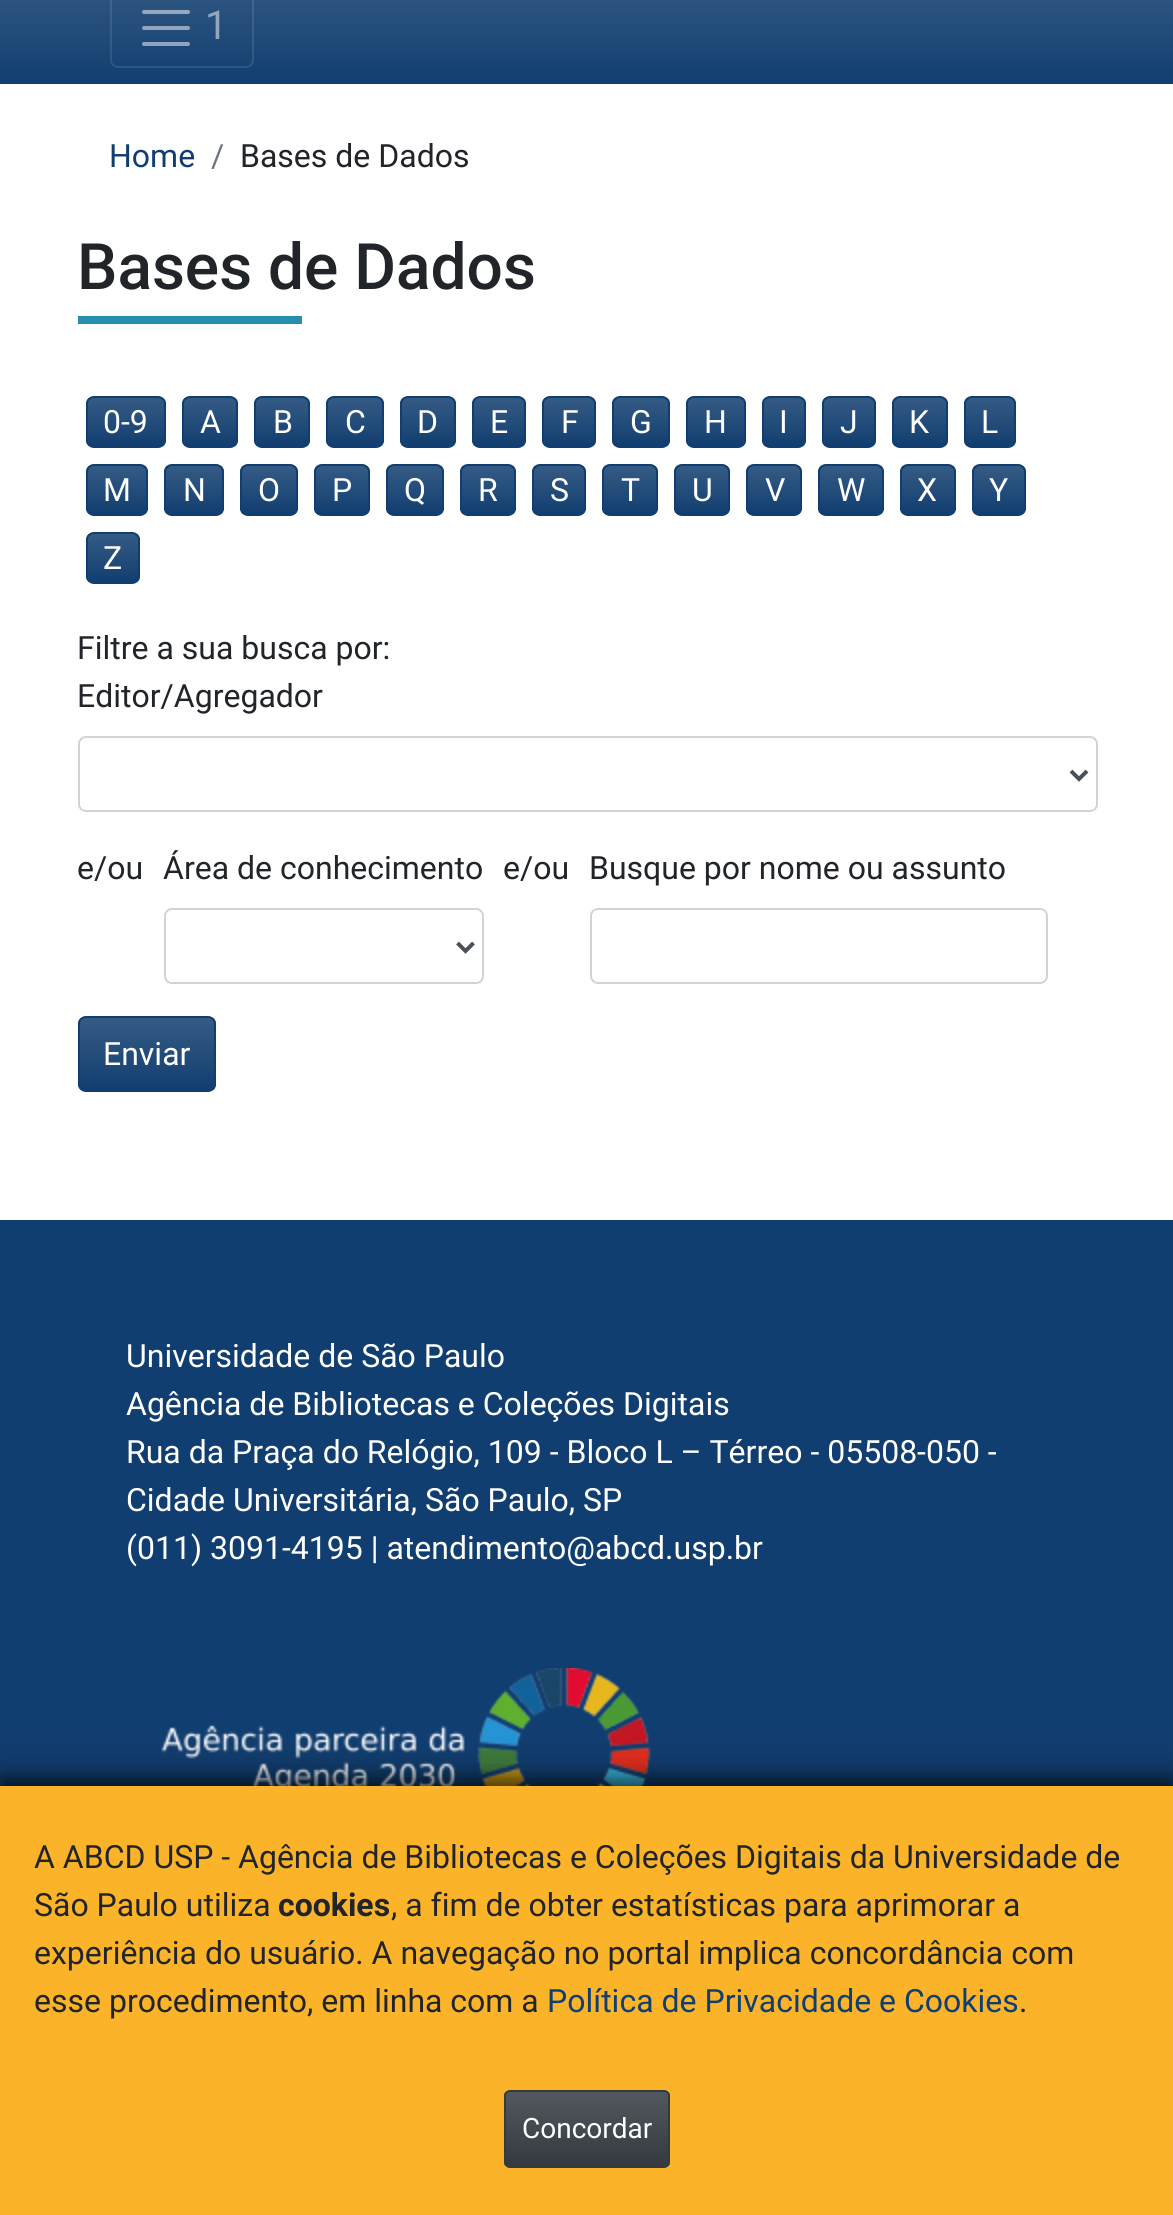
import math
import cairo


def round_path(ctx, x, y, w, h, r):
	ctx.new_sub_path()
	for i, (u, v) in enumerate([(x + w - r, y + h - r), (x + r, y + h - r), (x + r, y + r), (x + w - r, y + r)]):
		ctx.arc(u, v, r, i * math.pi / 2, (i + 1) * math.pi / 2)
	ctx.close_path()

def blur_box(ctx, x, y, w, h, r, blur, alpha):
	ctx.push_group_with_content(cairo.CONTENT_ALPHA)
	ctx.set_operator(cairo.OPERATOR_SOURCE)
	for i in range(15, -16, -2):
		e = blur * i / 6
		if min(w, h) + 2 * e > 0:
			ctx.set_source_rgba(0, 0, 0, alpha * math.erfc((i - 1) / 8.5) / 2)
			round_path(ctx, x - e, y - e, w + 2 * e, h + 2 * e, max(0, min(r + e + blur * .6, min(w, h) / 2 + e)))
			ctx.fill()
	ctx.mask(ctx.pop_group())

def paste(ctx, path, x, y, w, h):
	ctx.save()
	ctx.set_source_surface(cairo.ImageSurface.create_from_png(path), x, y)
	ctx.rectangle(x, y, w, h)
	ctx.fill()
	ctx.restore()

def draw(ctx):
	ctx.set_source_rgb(1, 1, 1)
	ctx.paint()
	gradient = cairo.LinearGradient(587, -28, 587, 84)
	gradient.add_color_stop_rgba(0, 0.208, 0.357, 0.522, 1)
	gradient.add_color_stop_rgba(1, 0.067, 0.243, 0.439, 1)
	ctx.set_source(gradient)
	ctx.rectangle(0, 0, 1173, 84)
	ctx.fill()
	round_path(ctx, 111, -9, 142, 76, 7)
	ctx.set_source_rgba(1, 1, 1, 0.1)
	ctx.stroke()
	ctx.new_path()
	ctx.move_to(144, 12)
	ctx.line_to(188, 12)
	ctx.move_to(144, 28)
	ctx.line_to(188, 28)
	ctx.move_to(144, 44)
	ctx.line_to(188, 44)
	ctx.set_source_rgba(1, 1, 1, 0.5)
	ctx.set_line_width(4)
	ctx.set_line_cap(cairo.LINE_CAP_ROUND)
	ctx.stroke()
	ctx.select_font_face('Roboto')
	ctx.set_font_size(40)
	ctx.set_source_rgb(0.573, 0.651, 0.741)
	ctx.move_to(205, 39)
	ctx.show_text('1')
	ctx.set_font_size(32)
	ctx.set_source_rgb(0.067, 0.243, 0.439)
	ctx.move_to(109, 167)
	ctx.show_text('Home')
	ctx.set_source_rgb(0.424, 0.459, 0.49)
	ctx.move_to(211, 167)
	ctx.show_text('/')
	ctx.set_source_rgb(0.129, 0.145, 0.161)
	ctx.move_to(240, 167)
	ctx.show_text('Bases de Dados')
	ctx.select_font_face('Roboto Medium')
	ctx.set_font_size(64)
	ctx.move_to(77, 289)
	ctx.show_text('Bases de Dados')
	ctx.set_source_rgb(0.149, 0.561, 0.663)
	ctx.rectangle(78, 316, 224, 8)
	ctx.fill()
	ctx.save()
	round_path(ctx, 86, 396, 80, 52, 8)
	ctx.clip()
	gradient = cairo.LinearGradient(126, 398, 126, 446)
	gradient.add_color_stop_rgba(0, 0.208, 0.357, 0.522, 1)
	gradient.add_color_stop_rgba(1, 0.067, 0.243, 0.439, 1)
	ctx.set_source(gradient)
	ctx.rectangle(86, 398, 80, 48)
	ctx.fill()
	ctx.restore()
	round_path(ctx, 87, 397, 78, 50, 7)
	ctx.set_source_rgb(0.067, 0.243, 0.439)
	ctx.set_line_width(2)
	ctx.set_line_cap(cairo.LINE_CAP_BUTT)
	ctx.stroke()
	ctx.select_font_face('Roboto')
	ctx.set_font_size(32)
	ctx.set_source_rgb(1, 1, 1)
	ctx.move_to(103, 433)
	ctx.show_text('0-9')
	ctx.save()
	round_path(ctx, 182, 396, 56, 52, 8)
	ctx.clip()
	gradient = cairo.LinearGradient(210, 398, 210, 446)
	gradient.add_color_stop_rgba(0, 0.208, 0.357, 0.522, 1)
	gradient.add_color_stop_rgba(1, 0.067, 0.243, 0.439, 1)
	ctx.set_source(gradient)
	ctx.rectangle(182, 398, 56, 48)
	ctx.fill()
	ctx.restore()
	round_path(ctx, 183, 397, 54, 50, 7)
	ctx.set_source_rgb(0.067, 0.243, 0.439)
	ctx.stroke()
	ctx.set_source_rgb(1, 1, 1)
	ctx.move_to(200, 433)
	ctx.show_text('A')
	ctx.save()
	round_path(ctx, 254, 396, 56, 52, 8)
	ctx.clip()
	gradient = cairo.LinearGradient(282, 398, 282, 446)
	gradient.add_color_stop_rgba(0, 0.208, 0.357, 0.522, 1)
	gradient.add_color_stop_rgba(1, 0.067, 0.243, 0.439, 1)
	ctx.set_source(gradient)
	ctx.rectangle(254, 398, 56, 48)
	ctx.fill()
	ctx.restore()
	round_path(ctx, 255, 397, 54, 50, 7)
	ctx.set_source_rgb(0.067, 0.243, 0.439)
	ctx.stroke()
	ctx.set_source_rgb(1, 1, 1)
	ctx.move_to(273, 433)
	ctx.show_text('B')
	ctx.save()
	round_path(ctx, 326, 396, 58, 52, 8)
	ctx.clip()
	gradient = cairo.LinearGradient(355, 398, 355, 446)
	gradient.add_color_stop_rgba(0, 0.208, 0.357, 0.522, 1)
	gradient.add_color_stop_rgba(1, 0.067, 0.243, 0.439, 1)
	ctx.set_source(gradient)
	ctx.rectangle(326, 398, 58, 48)
	ctx.fill()
	ctx.restore()
	round_path(ctx, 327, 397, 56, 50, 7)
	ctx.set_source_rgb(0.067, 0.243, 0.439)
	ctx.stroke()
	ctx.set_source_rgb(1, 1, 1)
	ctx.move_to(345, 433)
	ctx.show_text('C')
	ctx.save()
	round_path(ctx, 400, 396, 56, 52, 8)
	ctx.clip()
	gradient = cairo.LinearGradient(428, 398, 428, 446)
	gradient.add_color_stop_rgba(0, 0.208, 0.357, 0.522, 1)
	gradient.add_color_stop_rgba(1, 0.067, 0.243, 0.439, 1)
	ctx.set_source(gradient)
	ctx.rectangle(400, 398, 56, 48)
	ctx.fill()
	ctx.restore()
	round_path(ctx, 401, 397, 54, 50, 7)
	ctx.set_source_rgb(0.067, 0.243, 0.439)
	ctx.stroke()
	ctx.set_source_rgb(1, 1, 1)
	ctx.move_to(417, 433)
	ctx.show_text('D')
	ctx.save()
	round_path(ctx, 472, 396, 54, 52, 8)
	ctx.clip()
	gradient = cairo.LinearGradient(499, 398, 499, 446)
	gradient.add_color_stop_rgba(0, 0.208, 0.357, 0.522, 1)
	gradient.add_color_stop_rgba(1, 0.067, 0.243, 0.439, 1)
	ctx.set_source(gradient)
	ctx.rectangle(472, 398, 54, 48)
	ctx.fill()
	ctx.restore()
	round_path(ctx, 473, 397, 52, 50, 7)
	ctx.set_source_rgb(0.067, 0.243, 0.439)
	ctx.stroke()
	ctx.set_source_rgb(1, 1, 1)
	ctx.move_to(490, 433)
	ctx.show_text('E')
	ctx.save()
	round_path(ctx, 542, 396, 54, 52, 8)
	ctx.clip()
	gradient = cairo.LinearGradient(569, 398, 569, 446)
	gradient.add_color_stop_rgba(0, 0.208, 0.357, 0.522, 1)
	gradient.add_color_stop_rgba(1, 0.067, 0.243, 0.439, 1)
	ctx.set_source(gradient)
	ctx.rectangle(542, 398, 54, 48)
	ctx.fill()
	ctx.restore()
	round_path(ctx, 543, 397, 52, 50, 7)
	ctx.set_source_rgb(0.067, 0.243, 0.439)
	ctx.stroke()
	ctx.set_source_rgb(1, 1, 1)
	ctx.move_to(561, 433)
	ctx.show_text('F')
	ctx.save()
	round_path(ctx, 612, 396, 58, 52, 8)
	ctx.clip()
	gradient = cairo.LinearGradient(641, 398, 641, 446)
	gradient.add_color_stop_rgba(0, 0.208, 0.357, 0.522, 1)
	gradient.add_color_stop_rgba(1, 0.067, 0.243, 0.439, 1)
	ctx.set_source(gradient)
	ctx.rectangle(612, 398, 58, 48)
	ctx.fill()
	ctx.restore()
	round_path(ctx, 613, 397, 56, 50, 7)
	ctx.set_source_rgb(0.067, 0.243, 0.439)
	ctx.stroke()
	ctx.set_source_rgb(1, 1, 1)
	ctx.move_to(630, 433)
	ctx.show_text('G')
	ctx.save()
	round_path(ctx, 686, 396, 60, 52, 8)
	ctx.clip()
	gradient = cairo.LinearGradient(716, 398, 716, 446)
	gradient.add_color_stop_rgba(0, 0.208, 0.357, 0.522, 1)
	gradient.add_color_stop_rgba(1, 0.067, 0.243, 0.439, 1)
	ctx.set_source(gradient)
	ctx.rectangle(686, 398, 60, 48)
	ctx.fill()
	ctx.restore()
	round_path(ctx, 687, 397, 58, 50, 7)
	ctx.set_source_rgb(0.067, 0.243, 0.439)
	ctx.stroke()
	ctx.set_source_rgb(1, 1, 1)
	ctx.move_to(704, 433)
	ctx.show_text('H')
	ctx.save()
	round_path(ctx, 762, 396, 44, 52, 8)
	ctx.clip()
	gradient = cairo.LinearGradient(784, 398, 784, 446)
	gradient.add_color_stop_rgba(0, 0.208, 0.357, 0.522, 1)
	gradient.add_color_stop_rgba(1, 0.067, 0.243, 0.439, 1)
	ctx.set_source(gradient)
	ctx.rectangle(762, 398, 44, 48)
	ctx.fill()
	ctx.restore()
	round_path(ctx, 763, 397, 42, 50, 7)
	ctx.set_source_rgb(0.067, 0.243, 0.439)
	ctx.stroke()
	ctx.set_source_rgb(1, 1, 1)
	ctx.move_to(779, 433)
	ctx.show_text('I')
	ctx.save()
	round_path(ctx, 822, 396, 54, 52, 8)
	ctx.clip()
	gradient = cairo.LinearGradient(849, 398, 849, 446)
	gradient.add_color_stop_rgba(0, 0.208, 0.357, 0.522, 1)
	gradient.add_color_stop_rgba(1, 0.067, 0.243, 0.439, 1)
	ctx.set_source(gradient)
	ctx.rectangle(822, 398, 54, 48)
	ctx.fill()
	ctx.restore()
	round_path(ctx, 823, 397, 52, 50, 7)
	ctx.set_source_rgb(0.067, 0.243, 0.439)
	ctx.stroke()
	ctx.set_source_rgb(1, 1, 1)
	ctx.move_to(840, 433)
	ctx.show_text('J')
	ctx.save()
	round_path(ctx, 892, 396, 56, 52, 8)
	ctx.clip()
	gradient = cairo.LinearGradient(920, 398, 920, 446)
	gradient.add_color_stop_rgba(0, 0.208, 0.357, 0.522, 1)
	gradient.add_color_stop_rgba(1, 0.067, 0.243, 0.439, 1)
	ctx.set_source(gradient)
	ctx.rectangle(892, 398, 56, 48)
	ctx.fill()
	ctx.restore()
	round_path(ctx, 893, 397, 54, 50, 7)
	ctx.set_source_rgb(0.067, 0.243, 0.439)
	ctx.stroke()
	ctx.set_source_rgb(1, 1, 1)
	ctx.move_to(909, 433)
	ctx.show_text('K')
	ctx.save()
	round_path(ctx, 964, 396, 52, 52, 8)
	ctx.clip()
	gradient = cairo.LinearGradient(990, 398, 990, 446)
	gradient.add_color_stop_rgba(0, 0.208, 0.357, 0.522, 1)
	gradient.add_color_stop_rgba(1, 0.067, 0.243, 0.439, 1)
	ctx.set_source(gradient)
	ctx.rectangle(964, 398, 52, 48)
	ctx.fill()
	ctx.restore()
	round_path(ctx, 965, 397, 50, 50, 7)
	ctx.set_source_rgb(0.067, 0.243, 0.439)
	ctx.stroke()
	ctx.set_source_rgb(1, 1, 1)
	ctx.move_to(981, 433)
	ctx.show_text('L')
	ctx.save()
	round_path(ctx, 86, 464, 62, 52, 8)
	ctx.clip()
	gradient = cairo.LinearGradient(117, 466, 117, 514)
	gradient.add_color_stop_rgba(0, 0.208, 0.357, 0.522, 1)
	gradient.add_color_stop_rgba(1, 0.067, 0.243, 0.439, 1)
	ctx.set_source(gradient)
	ctx.rectangle(86, 466, 62, 48)
	ctx.fill()
	ctx.restore()
	round_path(ctx, 87, 465, 60, 50, 7)
	ctx.set_source_rgb(0.067, 0.243, 0.439)
	ctx.stroke()
	ctx.set_source_rgb(1, 1, 1)
	ctx.move_to(103, 501)
	ctx.show_text('M')
	ctx.save()
	round_path(ctx, 164, 464, 60, 52, 8)
	ctx.clip()
	gradient = cairo.LinearGradient(194, 466, 194, 514)
	gradient.add_color_stop_rgba(0, 0.208, 0.357, 0.522, 1)
	gradient.add_color_stop_rgba(1, 0.067, 0.243, 0.439, 1)
	ctx.set_source(gradient)
	ctx.rectangle(164, 466, 60, 48)
	ctx.fill()
	ctx.restore()
	round_path(ctx, 165, 465, 58, 50, 7)
	ctx.set_source_rgb(0.067, 0.243, 0.439)
	ctx.stroke()
	ctx.set_source_rgb(1, 1, 1)
	ctx.move_to(183, 501)
	ctx.show_text('N')
	ctx.save()
	round_path(ctx, 240, 464, 58, 52, 8)
	ctx.clip()
	gradient = cairo.LinearGradient(269, 466, 269, 514)
	gradient.add_color_stop_rgba(0, 0.208, 0.357, 0.522, 1)
	gradient.add_color_stop_rgba(1, 0.067, 0.243, 0.439, 1)
	ctx.set_source(gradient)
	ctx.rectangle(240, 466, 58, 48)
	ctx.fill()
	ctx.restore()
	round_path(ctx, 241, 465, 56, 50, 7)
	ctx.set_source_rgb(0.067, 0.243, 0.439)
	ctx.stroke()
	ctx.set_source_rgb(1, 1, 1)
	ctx.move_to(258, 501)
	ctx.show_text('O')
	ctx.save()
	round_path(ctx, 314, 464, 56, 52, 8)
	ctx.clip()
	gradient = cairo.LinearGradient(342, 466, 342, 514)
	gradient.add_color_stop_rgba(0, 0.208, 0.357, 0.522, 1)
	gradient.add_color_stop_rgba(1, 0.067, 0.243, 0.439, 1)
	ctx.set_source(gradient)
	ctx.rectangle(314, 466, 56, 48)
	ctx.fill()
	ctx.restore()
	round_path(ctx, 315, 465, 54, 50, 7)
	ctx.set_source_rgb(0.067, 0.243, 0.439)
	ctx.stroke()
	ctx.set_source_rgb(1, 1, 1)
	ctx.move_to(332, 501)
	ctx.show_text('P')
	ctx.save()
	round_path(ctx, 386, 464, 58, 52, 8)
	ctx.clip()
	gradient = cairo.LinearGradient(415, 466, 415, 514)
	gradient.add_color_stop_rgba(0, 0.208, 0.357, 0.522, 1)
	gradient.add_color_stop_rgba(1, 0.067, 0.243, 0.439, 1)
	ctx.set_source(gradient)
	ctx.rectangle(386, 466, 58, 48)
	ctx.fill()
	ctx.restore()
	round_path(ctx, 387, 465, 56, 50, 7)
	ctx.set_source_rgb(0.067, 0.243, 0.439)
	ctx.stroke()
	ctx.set_source_rgb(1, 1, 1)
	ctx.move_to(404, 501)
	ctx.show_text('Q')
	ctx.save()
	round_path(ctx, 460, 464, 56, 52, 8)
	ctx.clip()
	gradient = cairo.LinearGradient(488, 466, 488, 514)
	gradient.add_color_stop_rgba(0, 0.208, 0.357, 0.522, 1)
	gradient.add_color_stop_rgba(1, 0.067, 0.243, 0.439, 1)
	ctx.set_source(gradient)
	ctx.rectangle(460, 466, 56, 48)
	ctx.fill()
	ctx.restore()
	round_path(ctx, 461, 465, 54, 50, 7)
	ctx.set_source_rgb(0.067, 0.243, 0.439)
	ctx.stroke()
	ctx.set_source_rgb(1, 1, 1)
	ctx.move_to(478, 501)
	ctx.show_text('R')
	ctx.save()
	round_path(ctx, 532, 464, 54, 52, 8)
	ctx.clip()
	gradient = cairo.LinearGradient(559, 466, 559, 514)
	gradient.add_color_stop_rgba(0, 0.208, 0.357, 0.522, 1)
	gradient.add_color_stop_rgba(1, 0.067, 0.243, 0.439, 1)
	ctx.set_source(gradient)
	ctx.rectangle(532, 466, 54, 48)
	ctx.fill()
	ctx.restore()
	round_path(ctx, 533, 465, 52, 50, 7)
	ctx.set_source_rgb(0.067, 0.243, 0.439)
	ctx.stroke()
	ctx.set_source_rgb(1, 1, 1)
	ctx.move_to(550, 501)
	ctx.show_text('S')
	ctx.save()
	round_path(ctx, 602, 464, 56, 52, 8)
	ctx.clip()
	gradient = cairo.LinearGradient(630, 466, 630, 514)
	gradient.add_color_stop_rgba(0, 0.208, 0.357, 0.522, 1)
	gradient.add_color_stop_rgba(1, 0.067, 0.243, 0.439, 1)
	ctx.set_source(gradient)
	ctx.rectangle(602, 466, 56, 48)
	ctx.fill()
	ctx.restore()
	round_path(ctx, 603, 465, 54, 50, 7)
	ctx.set_source_rgb(0.067, 0.243, 0.439)
	ctx.stroke()
	ctx.set_source_rgb(1, 1, 1)
	ctx.move_to(621, 501)
	ctx.show_text('T')
	ctx.save()
	round_path(ctx, 674, 464, 56, 52, 8)
	ctx.clip()
	gradient = cairo.LinearGradient(702, 466, 702, 514)
	gradient.add_color_stop_rgba(0, 0.208, 0.357, 0.522, 1)
	gradient.add_color_stop_rgba(1, 0.067, 0.243, 0.439, 1)
	ctx.set_source(gradient)
	ctx.rectangle(674, 466, 56, 48)
	ctx.fill()
	ctx.restore()
	round_path(ctx, 675, 465, 54, 50, 7)
	ctx.set_source_rgb(0.067, 0.243, 0.439)
	ctx.stroke()
	ctx.set_source_rgb(1, 1, 1)
	ctx.move_to(692, 501)
	ctx.show_text('U')
	ctx.save()
	round_path(ctx, 746, 464, 56, 52, 8)
	ctx.clip()
	gradient = cairo.LinearGradient(774, 466, 774, 514)
	gradient.add_color_stop_rgba(0, 0.208, 0.357, 0.522, 1)
	gradient.add_color_stop_rgba(1, 0.067, 0.243, 0.439, 1)
	ctx.set_source(gradient)
	ctx.rectangle(746, 466, 56, 48)
	ctx.fill()
	ctx.restore()
	round_path(ctx, 747, 465, 54, 50, 7)
	ctx.set_source_rgb(0.067, 0.243, 0.439)
	ctx.stroke()
	ctx.set_source_rgb(1, 1, 1)
	ctx.move_to(765, 501)
	ctx.show_text('V')
	ctx.save()
	round_path(ctx, 818, 464, 66, 52, 8)
	ctx.clip()
	gradient = cairo.LinearGradient(851, 466, 851, 514)
	gradient.add_color_stop_rgba(0, 0.208, 0.357, 0.522, 1)
	gradient.add_color_stop_rgba(1, 0.067, 0.243, 0.439, 1)
	ctx.set_source(gradient)
	ctx.rectangle(818, 466, 66, 48)
	ctx.fill()
	ctx.restore()
	round_path(ctx, 819, 465, 64, 50, 7)
	ctx.set_source_rgb(0.067, 0.243, 0.439)
	ctx.stroke()
	ctx.set_source_rgb(1, 1, 1)
	ctx.move_to(837, 501)
	ctx.show_text('W')
	ctx.save()
	round_path(ctx, 900, 464, 56, 52, 8)
	ctx.clip()
	gradient = cairo.LinearGradient(928, 466, 928, 514)
	gradient.add_color_stop_rgba(0, 0.208, 0.357, 0.522, 1)
	gradient.add_color_stop_rgba(1, 0.067, 0.243, 0.439, 1)
	ctx.set_source(gradient)
	ctx.rectangle(900, 466, 56, 48)
	ctx.fill()
	ctx.restore()
	round_path(ctx, 901, 465, 54, 50, 7)
	ctx.set_source_rgb(0.067, 0.243, 0.439)
	ctx.stroke()
	ctx.set_source_rgb(1, 1, 1)
	ctx.move_to(917, 501)
	ctx.show_text('X')
	ctx.save()
	round_path(ctx, 972, 464, 54, 52, 8)
	ctx.clip()
	gradient = cairo.LinearGradient(999, 466, 999, 514)
	gradient.add_color_stop_rgba(0, 0.208, 0.357, 0.522, 1)
	gradient.add_color_stop_rgba(1, 0.067, 0.243, 0.439, 1)
	ctx.set_source(gradient)
	ctx.rectangle(972, 466, 54, 48)
	ctx.fill()
	ctx.restore()
	round_path(ctx, 973, 465, 52, 50, 7)
	ctx.set_source_rgb(0.067, 0.243, 0.439)
	ctx.stroke()
	ctx.set_source_rgb(1, 1, 1)
	ctx.move_to(989, 501)
	ctx.show_text('Y')
	ctx.save()
	round_path(ctx, 86, 532, 54, 52, 8)
	ctx.clip()
	gradient = cairo.LinearGradient(113, 534, 113, 582)
	gradient.add_color_stop_rgba(0, 0.208, 0.357, 0.522, 1)
	gradient.add_color_stop_rgba(1, 0.067, 0.243, 0.439, 1)
	ctx.set_source(gradient)
	ctx.rectangle(86, 534, 54, 48)
	ctx.fill()
	ctx.restore()
	round_path(ctx, 87, 533, 52, 50, 7)
	ctx.set_source_rgb(0.067, 0.243, 0.439)
	ctx.stroke()
	ctx.set_source_rgb(1, 1, 1)
	ctx.move_to(103, 569)
	ctx.show_text('Z')
	ctx.set_source_rgb(0.129, 0.145, 0.161)
	ctx.move_to(77, 659)
	ctx.show_text('Filtre a sua busca por:')
	ctx.move_to(77, 707)
	ctx.show_text('Editor/Agregador')
	round_path(ctx, 79, 737, 1018, 74, 7)
	ctx.set_source_rgb(0.808, 0.831, 0.855)
	ctx.stroke()
	ctx.new_path()
	ctx.move_to(1071, 771)
	ctx.line_to(1079, 779)
	ctx.line_to(1087, 771)
	ctx.set_source_rgb(0.286, 0.314, 0.341)
	ctx.set_line_width(4)
	ctx.stroke()
	ctx.set_source_rgb(0.129, 0.145, 0.161)
	ctx.move_to(77, 879)
	ctx.show_text('e/ou')
	ctx.move_to(163, 879)
	ctx.show_text('Área de conhecimento')
	round_path(ctx, 165, 909, 318, 74, 7)
	ctx.set_source_rgb(0.808, 0.831, 0.855)
	ctx.set_line_width(2)
	ctx.stroke()
	ctx.new_path()
	ctx.move_to(457.5, 943)
	ctx.line_to(465.5, 951)
	ctx.line_to(473.5, 943)
	ctx.set_source_rgb(0.286, 0.314, 0.341)
	ctx.set_line_width(4)
	ctx.stroke()
	ctx.set_source_rgb(0.129, 0.145, 0.161)
	ctx.move_to(503, 879)
	ctx.show_text('e/ou')
	ctx.move_to(589, 879)
	ctx.show_text('Busque por nome ou assunto')
	round_path(ctx, 591, 909, 456, 74, 7)
	ctx.set_source_rgb(0.808, 0.831, 0.855)
	ctx.set_line_width(2)
	ctx.stroke()
	ctx.save()
	round_path(ctx, 78, 1016, 138, 76, 8)
	ctx.clip()
	gradient = cairo.LinearGradient(147, 1018, 147, 1090)
	gradient.add_color_stop_rgba(0, 0.208, 0.357, 0.522, 1)
	gradient.add_color_stop_rgba(1, 0.067, 0.243, 0.439, 1)
	ctx.set_source(gradient)
	ctx.rectangle(78, 1018, 138, 72)
	ctx.fill()
	ctx.restore()
	round_path(ctx, 79, 1017, 136, 74, 7)
	ctx.set_source_rgb(0.067, 0.243, 0.439)
	ctx.stroke()
	ctx.set_source_rgb(1, 1, 1)
	ctx.move_to(103, 1065)
	ctx.show_text('Enviar')
	ctx.set_source_rgb(0.067, 0.243, 0.439)
	ctx.rectangle(0, 1220, 1173, 566)
	ctx.fill()
	ctx.set_source_rgb(1, 1, 1)
	for x, y, s in [
		(126, 1367, 'Universidade de São Paulo'),
		(126, 1415, 'Agência de Bibliotecas e Coleções Digitais'),
		(126, 1463, 'Rua da Praça do Relógio, 109 - Bloco L – Térreo - 05508-050 -'),
		(126, 1511, 'Cidade Universitária, São Paulo, SP'),
		(126, 1559, '(011) 3091-4195 | atendimento@abcd.usp.br'),
	]:
		ctx.move_to(x, y)
		ctx.show_text(s)
	paste(ctx, 'media/1.png', 161, 1668, 490, 118)
	ctx.set_source_rgb(0, 0, 0)
	blur_box(ctx, 0, 1774, 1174, 430, 0, 20, 0.3)
	blur_box(ctx, 0, 1778, 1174, 430, 0, 8, 0.5)
	ctx.set_source_rgb(0.984, 0.706, 0.165)
	ctx.rectangle(0, 1786, 1173, 429)
	ctx.fill()
	ctx.set_source_rgb(0.129, 0.145, 0.161)
	ctx.move_to(34, 1868)
	ctx.show_text('A ABCD USP - Agência de Bibliotecas e Coleções Digitais da Universidade de')
	ctx.move_to(34, 1916)
	ctx.show_text('São Paulo utiliza')
	ctx.select_font_face('Roboto', cairo.FONT_SLANT_NORMAL, cairo.FONT_WEIGHT_BOLD)
	ctx.move_to(278, 1916)
	ctx.show_text('cookies')
	ctx.select_font_face('Roboto')
	for x, y, s in [
		(391, 1916, ', a fim de obter estatísticas para aprimorar a'),
		(34, 1964, 'experiência do usuário. A navegação no portal implica concordância com'),
		(34, 2012, 'esse procedimento, em linha com a'),
	]:
		ctx.move_to(x, y)
		ctx.show_text(s)
	ctx.set_source_rgb(0.067, 0.243, 0.439)
	ctx.move_to(547, 2012)
	ctx.show_text('Política de Privacidade e Cookies')
	ctx.set_source_rgb(0.129, 0.145, 0.161)
	ctx.move_to(1019, 2012)
	ctx.show_text('.')
	ctx.save()
	round_path(ctx, 504, 2090, 166, 78, 6)
	ctx.clip()
	gradient = cairo.LinearGradient(587, 2092, 587, 2166)
	gradient.add_color_stop_rgba(0, 0.322, 0.345, 0.365, 1)
	gradient.add_color_stop_rgba(1, 0.204, 0.227, 0.251, 1)
	ctx.set_source(gradient)
	ctx.rectangle(504, 2092, 166, 74)
	ctx.fill()
	ctx.restore()
	round_path(ctx, 505, 2091, 164, 76, 5)
	ctx.set_source_rgb(0.204, 0.227, 0.251)
	ctx.stroke()
	ctx.set_font_size(28)
	ctx.set_source_rgb(1, 1, 1)
	ctx.move_to(522, 2138)
	ctx.show_text('Concordar')


surface = cairo.ImageSurface(cairo.FORMAT_RGB24, 1173, 2215)
ctx = cairo.Context(surface)
options = cairo.FontOptions()
options.set_hint_metrics(cairo.HINT_METRICS_OFF)
options.set_hint_style(cairo.HINT_STYLE_NONE)
ctx.set_font_options(options)
ctx.set_miter_limit(4)
draw(ctx)
surface.write_to_png('image.png')
